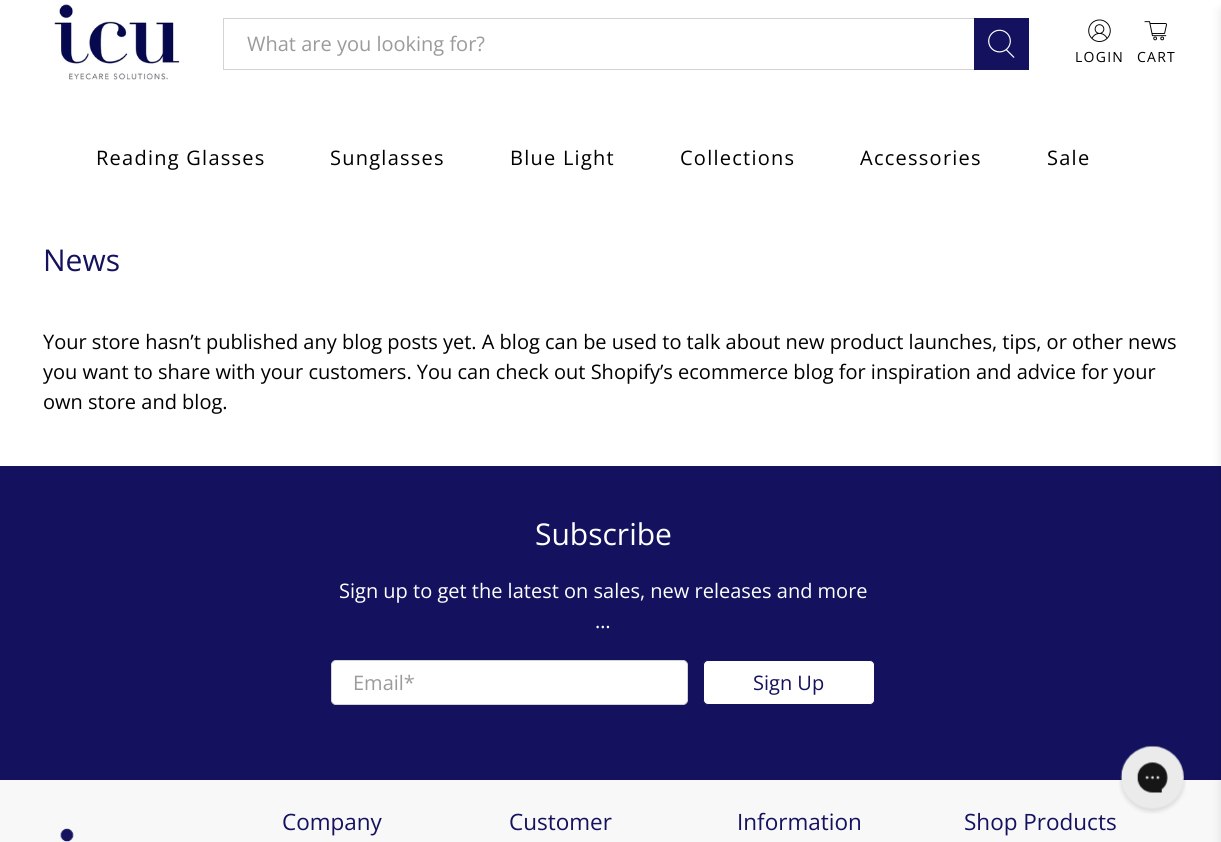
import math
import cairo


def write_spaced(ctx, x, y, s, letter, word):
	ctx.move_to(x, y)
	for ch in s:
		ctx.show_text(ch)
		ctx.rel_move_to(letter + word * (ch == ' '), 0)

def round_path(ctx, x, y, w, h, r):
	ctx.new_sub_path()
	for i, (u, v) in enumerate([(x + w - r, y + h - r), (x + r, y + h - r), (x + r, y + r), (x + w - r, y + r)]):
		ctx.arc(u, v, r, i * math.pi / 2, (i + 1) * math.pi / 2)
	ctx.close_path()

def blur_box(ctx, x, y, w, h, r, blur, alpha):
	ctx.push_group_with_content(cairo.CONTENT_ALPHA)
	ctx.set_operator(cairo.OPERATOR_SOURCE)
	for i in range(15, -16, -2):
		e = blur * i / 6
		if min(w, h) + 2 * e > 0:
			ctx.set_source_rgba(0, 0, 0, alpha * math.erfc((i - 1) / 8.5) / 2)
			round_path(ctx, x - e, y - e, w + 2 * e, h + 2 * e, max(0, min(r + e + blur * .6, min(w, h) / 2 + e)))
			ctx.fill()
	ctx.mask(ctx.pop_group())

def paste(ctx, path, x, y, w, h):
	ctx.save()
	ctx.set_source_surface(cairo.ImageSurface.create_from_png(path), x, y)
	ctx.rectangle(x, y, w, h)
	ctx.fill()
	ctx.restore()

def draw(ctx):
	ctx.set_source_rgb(1, 1, 1)
	ctx.paint()
	paste(ctx, 'media/1.png', 53, 2, 127, 78)
	ctx.rectangle(223.5, 18.5, 751, 51)
	ctx.set_source_rgb(0.827, 0.827, 0.827)
	ctx.set_line_width(1)
	ctx.stroke()
	ctx.select_font_face('Open Sans')
	ctx.set_font_size(20)
	ctx.set_source_rgb(0.608, 0.608, 0.608)
	ctx.move_to(247, 51)
	ctx.show_text('What are you looking for?')
	ctx.set_source_rgb(0.082, 0.071, 0.373)
	ctx.rectangle(974, 18, 55, 52)
	ctx.fill()
	paste(ctx, 'media/2.png', 988, 29, 27, 29)
	paste(ctx, 'media/3.png', 1088, 19, 23, 23)
	ctx.set_font_size(14)
	ctx.set_source_rgb(0, 0, 0)
	write_spaced(ctx, 1075, 62, 'LOGIN', 1.25, 0)
	paste(ctx, 'media/4.png', 1144, 21, 23, 20)
	write_spaced(ctx, 1137, 62, 'CART', 1.25, 0)
	ctx.set_font_size(20)
	for x, y, s in [
		(96, 165, 'Reading Glasses'),
		(330, 165, 'Sunglasses'),
		(510, 165, 'Blue Light'),
		(680, 165, 'Collections'),
		(860, 165, 'Accessories'),
		(1047, 165, 'Sale'),
	]:
		write_spaced(ctx, x, y, s, 1.25, 0)
	ctx.set_source_rgb(0.082, 0.071, 0.373)
	ctx.rectangle(0, 466, 1221, 314)
	ctx.fill()
	ctx.set_source_rgb(0.969, 0.969, 0.969)
	ctx.rectangle(0, 780, 1221, 62)
	ctx.fill()
	ctx.set_source_rgb(0.039, 0.039, 0.039)
	blur_box(ctx, 1221, 10, 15, 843, 0, 5, 0.1)
	ctx.set_font_size(30)
	ctx.set_source_rgb(0.082, 0.071, 0.373)
	ctx.move_to(43, 271)
	ctx.show_text('News')
	ctx.set_font_size(20)
	ctx.set_source_rgb(0, 0, 0)
	for x, y, s in [
		(43, 349, 'Your store hasn’t published any blog posts yet. A blog can be used to talk about new product launches, tips, or other news'),
		(43, 379, 'you want to share with your customers. You can check out Shopify’s ecommerce blog for inspiration and advice for your'),
		(43, 409, 'own store and blog.'),
	]:
		ctx.move_to(x, y)
		ctx.show_text(s)
	ctx.set_font_size(30)
	ctx.set_source_rgb(1, 1, 1)
	ctx.move_to(535, 545)
	ctx.show_text('Subscribe')
	ctx.set_font_size(20)
	ctx.move_to(339, 598)
	ctx.show_text('Sign up to get the latest on sales, new releases and more')
	ctx.move_to(595, 628)
	ctx.show_text('…')
	round_path(ctx, 331.5, 660.5, 356, 44, 4.5)
	ctx.fill_preserve()
	ctx.set_source_rgb(0.827, 0.827, 0.827)
	ctx.stroke()
	ctx.set_source_rgb(0.608, 0.608, 0.608)
	ctx.move_to(353, 690)
	ctx.show_text('Email*')
	ctx.set_source_rgb(1, 1, 1)
	round_path(ctx, 703.5, 660.5, 171, 44, 4.5)
	ctx.fill_preserve()
	ctx.set_source_rgb(0.082, 0.071, 0.373)
	ctx.stroke()
	ctx.move_to(753, 690)
	ctx.show_text('Sign Up')
	paste(ctx, 'media/5.png', 1119, 745, 67, 69)
	ctx.set_font_size(22.5)
	for x, y, s in [
		(282, 830, 'Company'),
		(509, 830, 'Customer'),
		(737, 830, 'Information'),
		(964, 830, 'Shop Products'),
	]:
		ctx.move_to(x, y)
		ctx.show_text(s)
	paste(ctx, 'media/6.png', 60, 828, 14, 14)


surface = cairo.ImageSurface(cairo.FORMAT_RGB24, 1221, 842)
ctx = cairo.Context(surface)
options = cairo.FontOptions()
options.set_hint_metrics(cairo.HINT_METRICS_OFF)
options.set_hint_style(cairo.HINT_STYLE_NONE)
ctx.set_font_options(options)
ctx.set_miter_limit(4)
draw(ctx)
surface.write_to_png('image.png')
